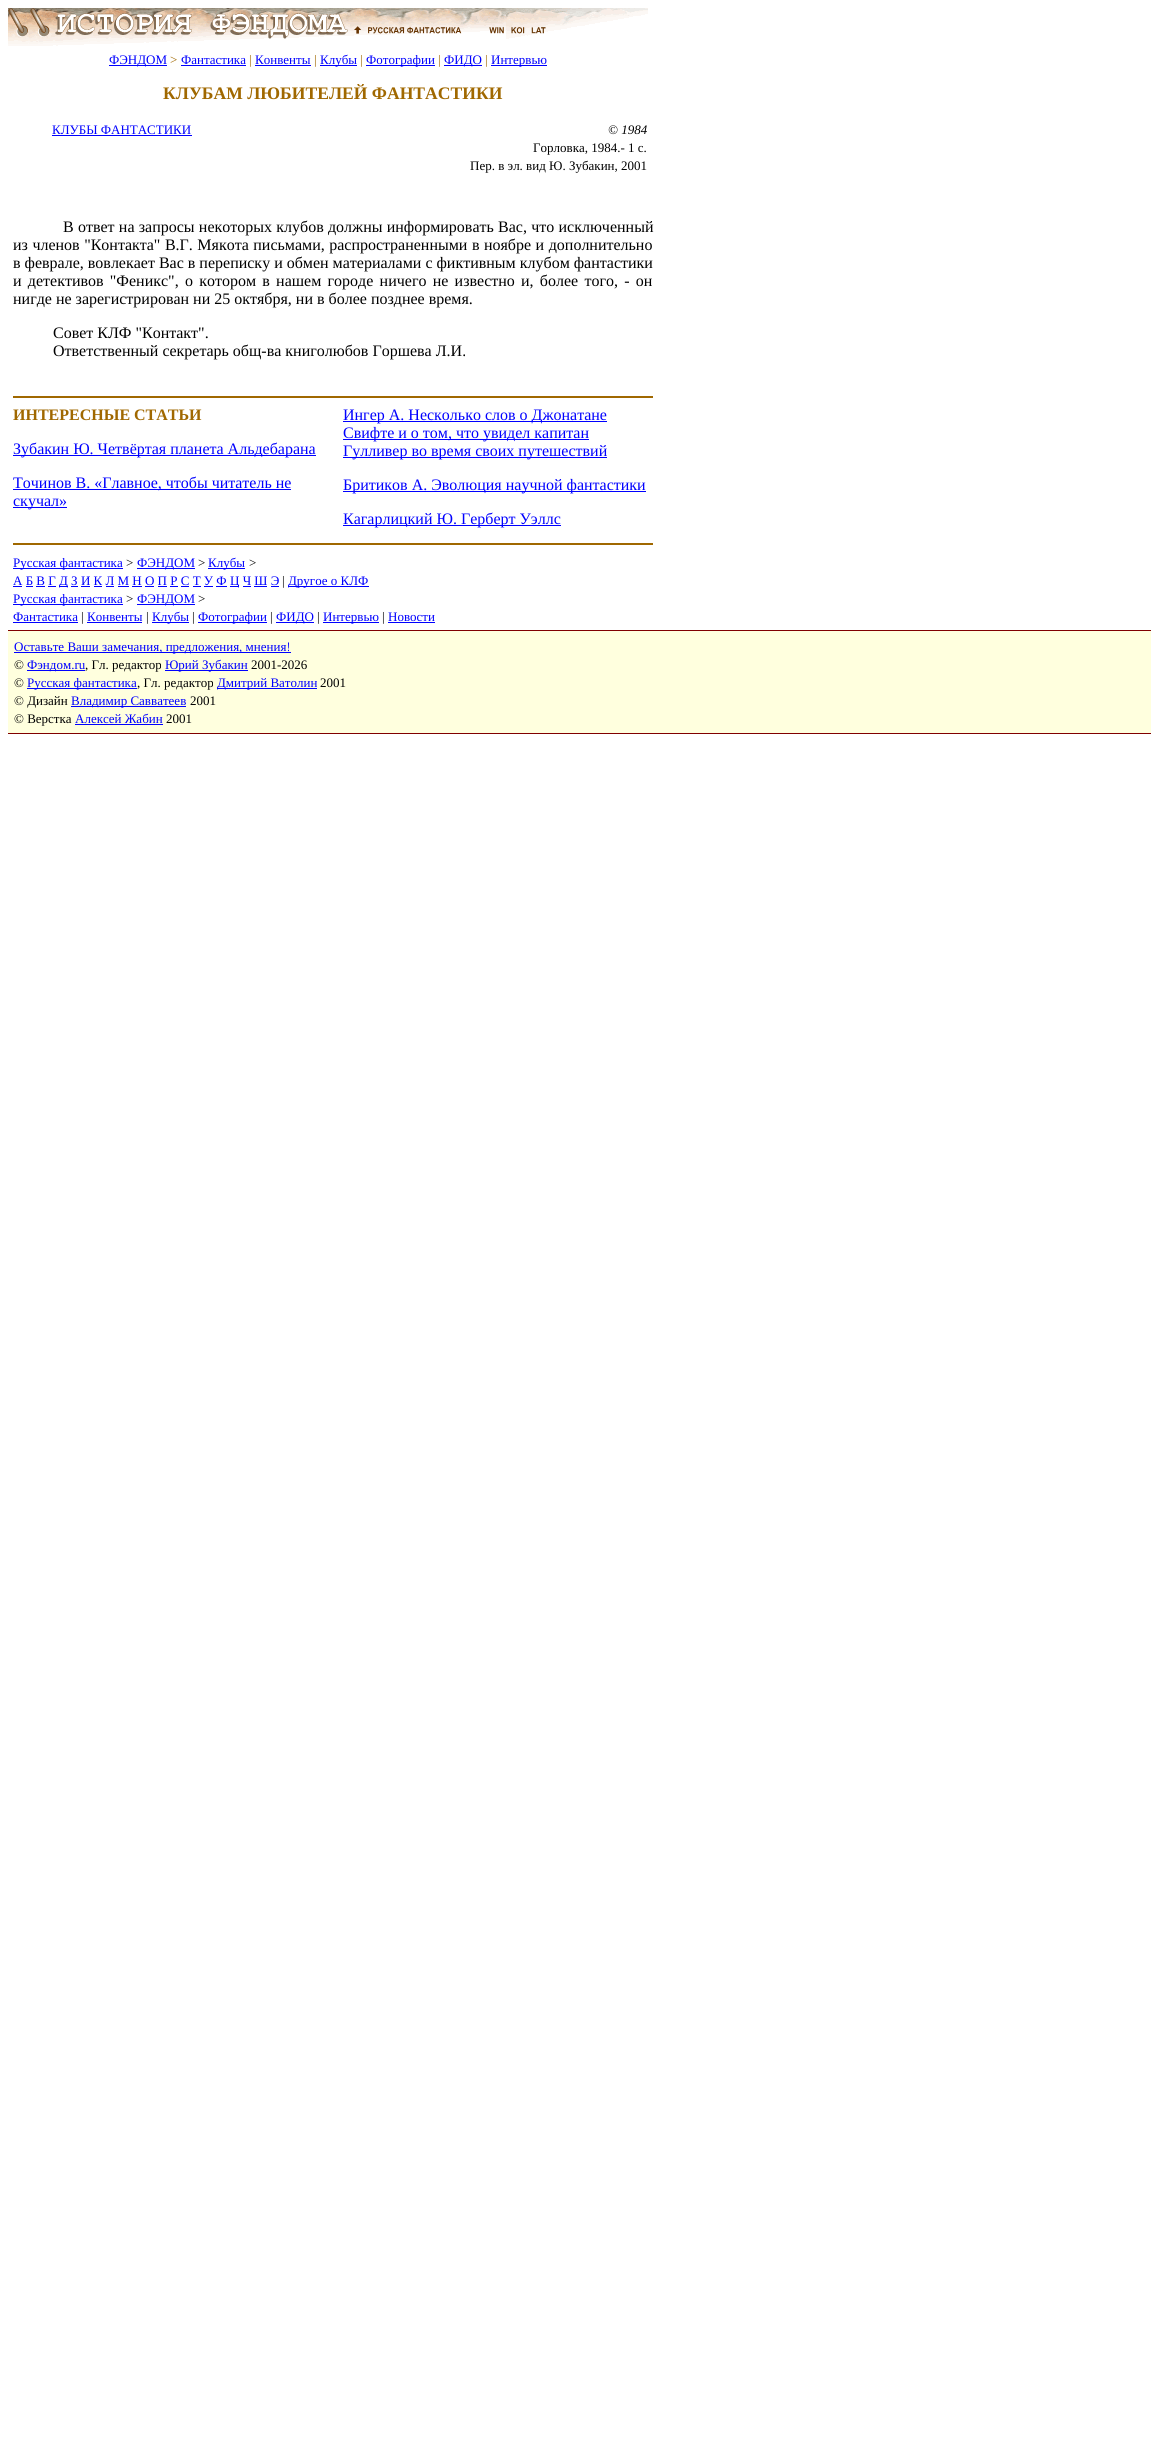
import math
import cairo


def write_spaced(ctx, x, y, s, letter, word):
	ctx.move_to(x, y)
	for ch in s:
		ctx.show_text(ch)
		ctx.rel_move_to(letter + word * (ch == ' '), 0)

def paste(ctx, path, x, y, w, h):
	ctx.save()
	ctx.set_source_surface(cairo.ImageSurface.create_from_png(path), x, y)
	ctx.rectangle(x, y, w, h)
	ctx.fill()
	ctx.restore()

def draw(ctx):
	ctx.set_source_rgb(1, 1, 1)
	ctx.paint()
	paste(ctx, 'media/1.png', 8, 8, 640, 38)
	ctx.set_source_rgb(0, 0, 1)
	ctx.rectangle(109, 65, 58, 1)
	ctx.fill()
	ctx.select_font_face('Liberation Serif')
	ctx.set_font_size(13)
	ctx.move_to(109, 64)
	ctx.show_text('ФЭНДОМ')
	ctx.set_source_rgb(0.627, 0.408, 0)
	ctx.move_to(170, 64)
	ctx.show_text('>')
	ctx.set_source_rgb(0, 0, 1)
	ctx.move_to(181, 64)
	ctx.show_text('Фантастика')
	ctx.rectangle(181, 65, 65, 1)
	ctx.fill()
	ctx.set_source_rgb(0.627, 0.408, 0)
	ctx.move_to(249, 64)
	ctx.show_text('|')
	ctx.set_source_rgb(0, 0, 1)
	ctx.move_to(255, 64)
	ctx.show_text('Конвенты')
	ctx.rectangle(255, 65, 56, 1)
	ctx.fill()
	ctx.set_source_rgb(0.627, 0.408, 0)
	ctx.move_to(314, 64)
	ctx.show_text('|')
	ctx.set_source_rgb(0, 0, 1)
	ctx.rectangle(320, 65, 37, 1)
	ctx.fill()
	ctx.move_to(320, 64)
	ctx.show_text('Клубы')
	ctx.set_source_rgb(0.627, 0.408, 0)
	ctx.move_to(360, 64)
	ctx.show_text('|')
	ctx.set_source_rgb(0, 0, 1)
	ctx.rectangle(366, 65, 69, 1)
	ctx.fill()
	ctx.move_to(366, 64)
	ctx.show_text('Фотографии')
	ctx.set_source_rgb(0.627, 0.408, 0)
	ctx.move_to(438, 64)
	ctx.show_text('|')
	ctx.set_source_rgb(0, 0, 1)
	ctx.rectangle(444, 65, 38, 1)
	ctx.fill()
	ctx.move_to(444, 64)
	ctx.show_text('ФИДО')
	ctx.set_source_rgb(0.627, 0.408, 0)
	ctx.move_to(485, 64)
	ctx.show_text('|')
	ctx.set_source_rgb(0, 0, 1)
	ctx.rectangle(491, 65, 56, 1)
	ctx.fill()
	ctx.move_to(491, 64)
	ctx.show_text('Интервью')
	ctx.select_font_face('Liberation Serif', cairo.FONT_SLANT_NORMAL, cairo.FONT_WEIGHT_BOLD)
	ctx.set_font_size(17.6)
	ctx.set_source_rgb(0.627, 0.408, 0)
	ctx.move_to(163, 99)
	ctx.show_text('КЛУБАМ ЛЮБИТЕЛЕЙ ФАНТАСТИКИ')
	ctx.select_font_face('Liberation Serif')
	ctx.set_font_size(13)
	ctx.set_source_rgb(0, 0, 1)
	ctx.move_to(52, 134)
	ctx.show_text('КЛУБЫ ФАНТАСТИКИ')
	ctx.rectangle(52, 135, 140, 1)
	ctx.fill()
	ctx.select_font_face('Liberation Serif', cairo.FONT_SLANT_ITALIC)
	ctx.set_source_rgb(0, 0, 0)
	ctx.move_to(608, 134)
	ctx.show_text('© 1984')
	ctx.select_font_face('Liberation Serif')
	ctx.move_to(533, 152)
	ctx.show_text('Горловка, 1984.- 1 с.')
	ctx.move_to(470, 170)
	ctx.show_text('Пер. в эл. вид Ю. Зубакин, 2001')
	ctx.set_font_size(16)
	write_spaced(ctx, 63, 232, 'В ответ на запросы некоторых клубов должны информировать Вас, что исключенный', 0, 0.25)
	write_spaced(ctx, 13, 250, 'из членов "Контакта" В.Г. Мякота письмами, распространенными в ноябре и дополнительно', 0, 0.5)
	ctx.move_to(13, 268)
	ctx.show_text('в феврале, вовлекает Вас в переписку и обмен материалами с фиктивным клубом фантастики')
	write_spaced(ctx, 13, 286, 'и детективов "Феникс", о котором в нашем городе ничего не известно и, более того, - он', 0, 2.25)
	for x, y, s in [
		(13, 304, 'нигде не зарегистрирован ни 25 октября, ни в более позднее время.'),
		(53, 338, 'Совет КЛФ "Контакт".'),
		(53, 356, 'Ответственный секретарь общ-ва книголюбов Горшева Л.И.'),
	]:
		ctx.move_to(x, y)
		ctx.show_text(s)
	ctx.set_source_rgb(0.627, 0.408, 0)
	ctx.rectangle(13, 396, 640, 2)
	ctx.fill()
	ctx.select_font_face('Liberation Serif', cairo.FONT_SLANT_NORMAL, cairo.FONT_WEIGHT_BOLD)
	ctx.move_to(13, 420)
	ctx.show_text('ИНТЕРЕСНЫЕ СТАТЬИ')
	ctx.set_source_rgb(0, 0, 1)
	ctx.rectangle(343, 421, 264, 1)
	ctx.fill()
	ctx.select_font_face('Liberation Serif')
	ctx.move_to(343, 420)
	ctx.show_text('Ингер А. Несколько слов о Джонатане')
	ctx.rectangle(343, 439, 246, 1)
	ctx.fill()
	ctx.move_to(343, 438)
	ctx.show_text('Свифте и о том, что увидел капитан')
	ctx.rectangle(343, 457, 264, 1)
	ctx.fill()
	ctx.move_to(343, 456)
	ctx.show_text('Гулливер во время своих путешествий')
	ctx.rectangle(13, 455, 303, 1)
	ctx.fill()
	ctx.move_to(13, 454)
	ctx.show_text('Зубакин Ю. Четвёртая планета Альдебарана')
	ctx.rectangle(13, 489, 278, 1)
	ctx.fill()
	ctx.move_to(13, 488)
	ctx.show_text('Точинов В. «Главное, чтобы читатель не')
	ctx.rectangle(13, 507, 54, 1)
	ctx.fill()
	ctx.move_to(13, 506)
	ctx.show_text('скучал»')
	ctx.rectangle(343, 491, 303, 1)
	ctx.fill()
	ctx.move_to(343, 490)
	ctx.show_text('Бритиков А. Эволюция научной фантастики')
	ctx.rectangle(343, 525, 218, 1)
	ctx.fill()
	ctx.move_to(343, 524)
	ctx.show_text('Кагарлицкий Ю. Герберт Уэллс')
	ctx.set_source_rgb(0.627, 0.408, 0)
	ctx.rectangle(13, 543, 640, 2)
	ctx.fill()
	ctx.set_source_rgb(0, 0, 1)
	ctx.rectangle(13, 568, 110, 1)
	ctx.fill()
	ctx.set_font_size(13)
	ctx.move_to(13, 567)
	ctx.show_text('Русская фантастика')
	ctx.set_source_rgb(0, 0, 0)
	ctx.move_to(126, 567)
	ctx.show_text('>')
	ctx.set_source_rgb(0, 0, 1)
	ctx.rectangle(137, 568, 58, 1)
	ctx.fill()
	ctx.move_to(137, 567)
	ctx.show_text('ФЭНДОМ')
	ctx.set_source_rgb(0, 0, 0)
	ctx.move_to(198, 567)
	ctx.show_text('>')
	ctx.set_source_rgb(0, 0, 1)
	ctx.rectangle(208, 568, 37, 1)
	ctx.fill()
	ctx.move_to(208, 567)
	ctx.show_text('Клубы')
	ctx.set_source_rgb(0, 0, 0)
	ctx.move_to(249, 567)
	ctx.show_text('>')
	ctx.set_source_rgb(0, 0, 1)
	ctx.move_to(13, 585)
	ctx.show_text('А Б В Г')
	ctx.rectangle(13, 586, 9, 1)
	ctx.rectangle(26, 586, 7, 1)
	ctx.rectangle(36, 586, 9, 1)
	ctx.rectangle(48, 586, 8, 1)
	ctx.rectangle(59, 586, 9, 1)
	ctx.fill()
	ctx.move_to(59, 585)
	ctx.show_text('Д З И К Л М Н О П Р С Т У Ф')
	ctx.rectangle(71, 586, 7, 1)
	ctx.rectangle(81, 586, 9, 1)
	ctx.rectangle(94, 586, 8, 1)
	ctx.rectangle(106, 586, 8, 1)
	ctx.rectangle(118, 586, 11, 1)
	ctx.rectangle(132, 586, 10, 1)
	ctx.rectangle(145, 586, 9, 1)
	ctx.rectangle(158, 586, 9, 1)
	ctx.rectangle(170, 586, 8, 1)
	ctx.rectangle(181, 586, 8, 1)
	ctx.rectangle(193, 586, 8, 1)
	ctx.rectangle(204, 586, 9, 1)
	ctx.rectangle(216, 586, 11, 1)
	ctx.rectangle(230, 586, 9, 1)
	ctx.fill()
	ctx.move_to(230, 585)
	ctx.show_text('Ц Ч Ш Э')
	ctx.rectangle(243, 586, 8, 1)
	ctx.rectangle(254, 586, 13, 1)
	ctx.rectangle(271, 586, 8, 1)
	ctx.fill()
	ctx.set_source_rgb(0, 0, 0)
	ctx.move_to(282, 585)
	ctx.show_text('|')
	ctx.set_source_rgb(0, 0, 1)
	ctx.rectangle(288, 586, 81, 1)
	ctx.fill()
	ctx.move_to(288, 585)
	ctx.show_text('Другое о КЛФ')
	ctx.rectangle(13, 604, 110, 1)
	ctx.fill()
	ctx.move_to(13, 603)
	ctx.show_text('Русская фантастика')
	ctx.set_source_rgb(0, 0, 0)
	ctx.move_to(126, 603)
	ctx.show_text('>')
	ctx.set_source_rgb(0, 0, 1)
	ctx.rectangle(137, 604, 58, 1)
	ctx.fill()
	ctx.move_to(137, 603)
	ctx.show_text('ФЭНДОМ')
	ctx.set_source_rgb(0, 0, 0)
	ctx.move_to(198, 603)
	ctx.show_text('>')
	ctx.set_source_rgb(0, 0, 1)
	ctx.move_to(13, 621)
	ctx.show_text('Фантастика')
	ctx.rectangle(13, 622, 65, 1)
	ctx.fill()
	ctx.set_source_rgb(0, 0, 0)
	ctx.move_to(81, 621)
	ctx.show_text('|')
	ctx.set_source_rgb(0, 0, 1)
	ctx.move_to(87, 621)
	ctx.show_text('Конвенты')
	ctx.rectangle(87, 622, 55, 1)
	ctx.fill()
	ctx.set_source_rgb(0, 0, 0)
	ctx.move_to(146, 621)
	ctx.show_text('|')
	ctx.set_source_rgb(0, 0, 1)
	ctx.rectangle(152, 622, 37, 1)
	ctx.fill()
	ctx.move_to(152, 621)
	ctx.show_text('Клубы')
	ctx.set_source_rgb(0, 0, 0)
	ctx.move_to(192, 621)
	ctx.show_text('|')
	ctx.set_source_rgb(0, 0, 1)
	ctx.rectangle(198, 622, 69, 1)
	ctx.fill()
	ctx.move_to(198, 621)
	ctx.show_text('Фотографии')
	ctx.set_source_rgb(0, 0, 0)
	ctx.move_to(270, 621)
	ctx.show_text('|')
	ctx.set_source_rgb(0, 0, 1)
	ctx.rectangle(276, 622, 38, 1)
	ctx.fill()
	ctx.move_to(276, 621)
	ctx.show_text('ФИДО')
	ctx.set_source_rgb(0, 0, 0)
	ctx.move_to(317, 621)
	ctx.show_text('|')
	ctx.set_source_rgb(0, 0, 1)
	ctx.rectangle(323, 622, 56, 1)
	ctx.fill()
	ctx.move_to(323, 621)
	ctx.show_text('Интервью')
	ctx.set_source_rgb(0, 0, 0)
	ctx.move_to(382, 621)
	ctx.show_text('|')
	ctx.set_source_rgb(0, 0, 1)
	ctx.move_to(388, 621)
	ctx.show_text('Новости')
	ctx.rectangle(388, 622, 47, 1)
	ctx.fill()
	ctx.set_source_rgb(0.502, 0, 0)
	ctx.rectangle(8, 630, 1143, 1)
	ctx.fill()
	ctx.set_source_rgb(1, 1, 0.871)
	ctx.rectangle(8, 631, 1143, 102)
	ctx.fill()
	ctx.set_source_rgb(0, 0, 1)
	ctx.rectangle(14, 652, 277, 1)
	ctx.fill()
	ctx.move_to(14, 651)
	ctx.show_text('Оставьте Ваши замечания, предложения, мнения!')
	ctx.set_source_rgb(0, 0, 0)
	ctx.move_to(14, 669)
	ctx.show_text('©')
	ctx.set_source_rgb(0, 0, 1)
	ctx.rectangle(27, 670, 58, 1)
	ctx.fill()
	ctx.move_to(27, 669)
	ctx.show_text('Фэндом.ru')
	ctx.set_source_rgb(0, 0, 0)
	ctx.move_to(85, 669)
	ctx.show_text(', Гл. редактор')
	ctx.set_source_rgb(0, 0, 1)
	ctx.rectangle(165, 670, 83, 1)
	ctx.fill()
	ctx.move_to(165, 669)
	ctx.show_text('Юрий Зубакин')
	ctx.set_source_rgb(0, 0, 0)
	ctx.move_to(251, 669)
	ctx.show_text('2001-2026')
	ctx.move_to(14, 687)
	ctx.show_text('©')
	ctx.set_source_rgb(0, 0, 1)
	ctx.rectangle(27, 688, 110, 1)
	ctx.fill()
	ctx.move_to(27, 687)
	ctx.show_text('Русская фантастика')
	ctx.set_source_rgb(0, 0, 0)
	ctx.move_to(137, 687)
	ctx.show_text(', Гл. редактор')
	ctx.set_source_rgb(0, 0, 1)
	ctx.rectangle(217, 688, 100, 1)
	ctx.fill()
	ctx.move_to(217, 687)
	ctx.show_text('Дмитрий Ватолин')
	ctx.set_source_rgb(0, 0, 0)
	ctx.move_to(320, 687)
	ctx.show_text('2001')
	ctx.move_to(14, 705)
	ctx.show_text('© Дизайн')
	ctx.set_source_rgb(0, 0, 1)
	ctx.rectangle(71, 706, 115, 1)
	ctx.fill()
	ctx.move_to(71, 705)
	ctx.show_text('Владимир Савватеев')
	ctx.set_source_rgb(0, 0, 0)
	ctx.move_to(190, 705)
	ctx.show_text('2001')
	ctx.move_to(14, 723)
	ctx.show_text('© Верстка')
	ctx.set_source_rgb(0, 0, 1)
	ctx.rectangle(75, 724, 88, 1)
	ctx.fill()
	ctx.move_to(75, 723)
	ctx.show_text('Алексей Жабин')
	ctx.set_source_rgb(0, 0, 0)
	ctx.move_to(166, 723)
	ctx.show_text('2001')
	ctx.set_source_rgb(0.502, 0, 0)
	ctx.rectangle(8, 733, 1143, 1)
	ctx.fill()


surface = cairo.ImageSurface(cairo.FORMAT_RGB24, 1159, 2457)
ctx = cairo.Context(surface)
options = cairo.FontOptions()
options.set_hint_metrics(cairo.HINT_METRICS_OFF)
options.set_hint_style(cairo.HINT_STYLE_NONE)
ctx.set_font_options(options)
ctx.set_miter_limit(4)
draw(ctx)
surface.write_to_png('image.png')
